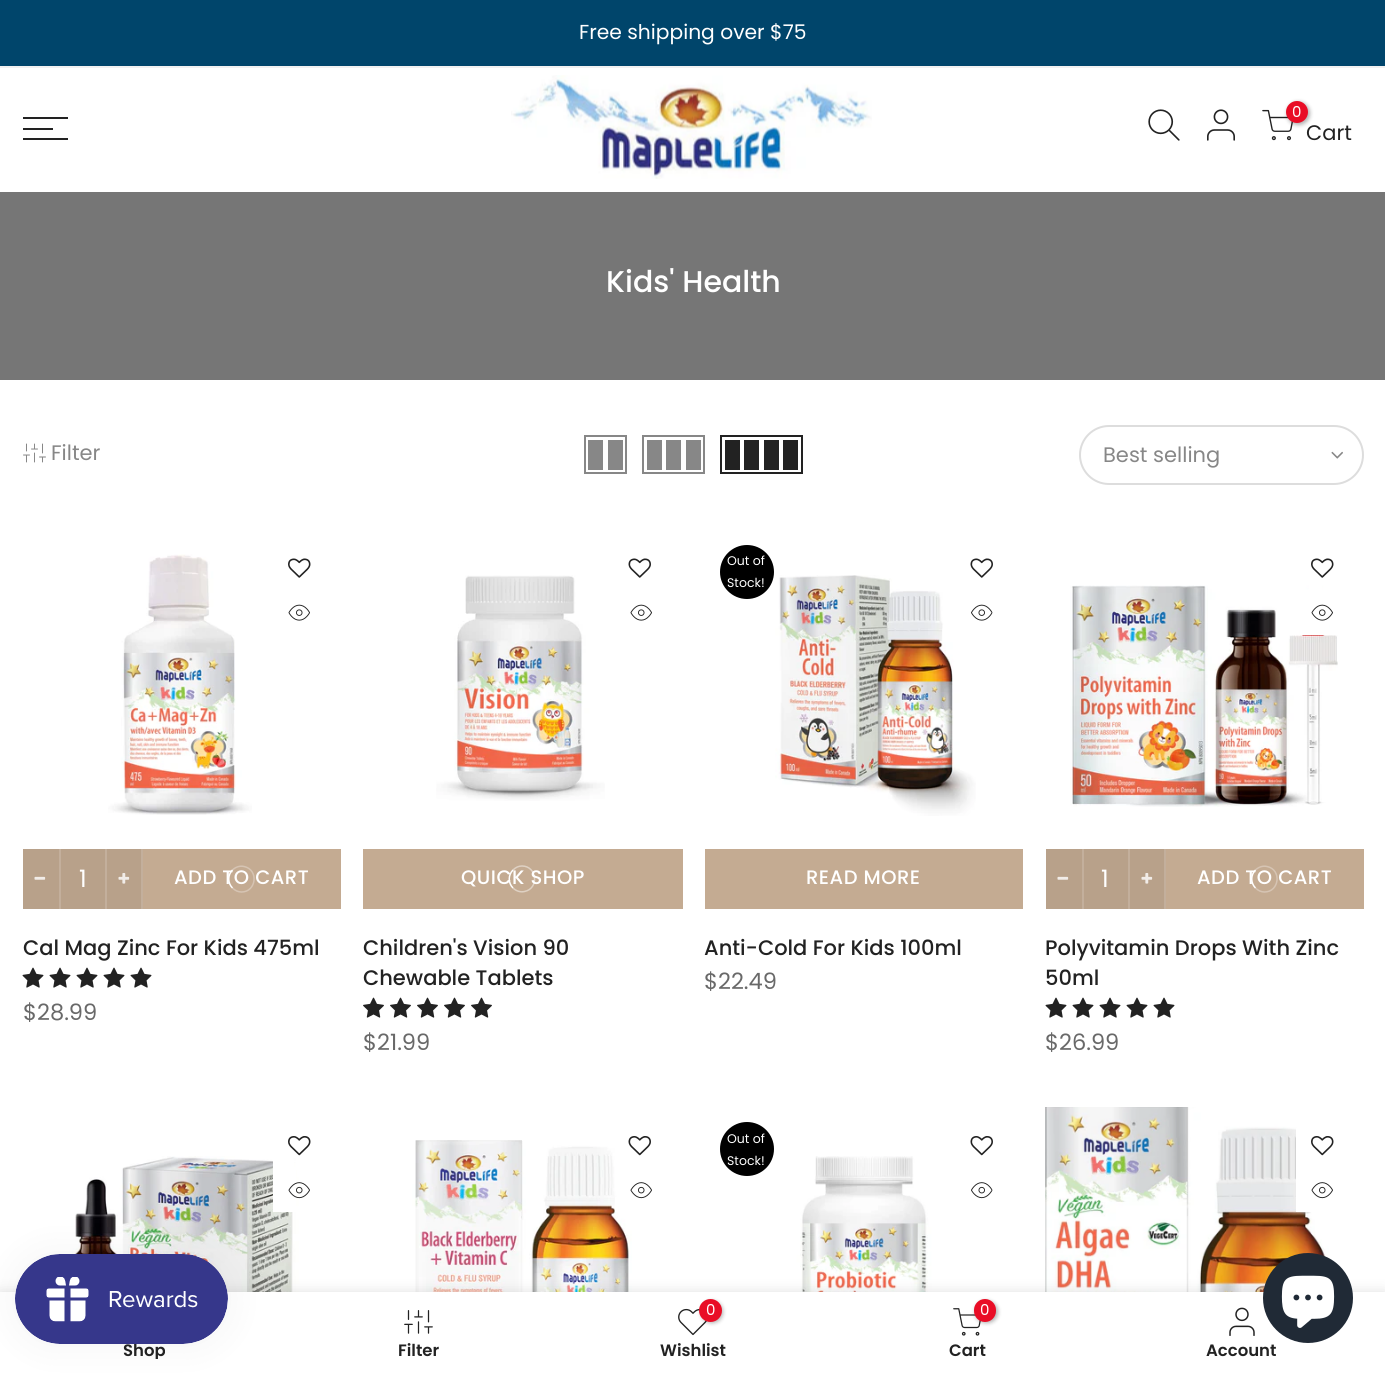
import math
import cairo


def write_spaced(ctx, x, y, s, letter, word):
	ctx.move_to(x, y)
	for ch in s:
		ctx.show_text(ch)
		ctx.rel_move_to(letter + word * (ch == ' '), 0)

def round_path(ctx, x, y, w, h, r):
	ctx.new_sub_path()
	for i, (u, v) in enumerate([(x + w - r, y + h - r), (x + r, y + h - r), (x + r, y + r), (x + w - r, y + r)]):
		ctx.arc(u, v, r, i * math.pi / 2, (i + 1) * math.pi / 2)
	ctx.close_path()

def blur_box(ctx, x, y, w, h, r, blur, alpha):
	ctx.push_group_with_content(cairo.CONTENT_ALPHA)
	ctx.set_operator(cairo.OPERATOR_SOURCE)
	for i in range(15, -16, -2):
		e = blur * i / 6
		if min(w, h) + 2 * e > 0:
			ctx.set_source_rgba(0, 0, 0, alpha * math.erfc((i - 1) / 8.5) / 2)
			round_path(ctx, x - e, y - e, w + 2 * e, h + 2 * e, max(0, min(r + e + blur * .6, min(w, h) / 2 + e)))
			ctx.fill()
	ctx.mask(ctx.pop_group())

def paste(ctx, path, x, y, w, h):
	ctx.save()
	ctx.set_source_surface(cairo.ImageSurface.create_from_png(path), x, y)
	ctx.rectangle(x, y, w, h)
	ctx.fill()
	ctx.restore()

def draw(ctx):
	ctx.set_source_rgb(1, 1, 1)
	ctx.paint()
	ctx.set_source_rgb(0, 0.271, 0.42)
	ctx.rectangle(0, 0, 1385, 66)
	ctx.fill()
	ctx.set_source_rgb(0.945, 0.945, 0.945)
	ctx.rectangle(0, 66, 1385, 2)
	ctx.fill()
	ctx.select_font_face('Poppins')
	ctx.set_font_size(20.25)
	ctx.set_source_rgb(1, 1, 1)
	ctx.move_to(579, 39)
	ctx.show_text('Free shipping over $75')
	ctx.set_source_rgb(0.133, 0.133, 0.133)
	ctx.rectangle(23, 117, 45, 2)
	ctx.rectangle(23, 128, 30, 2)
	ctx.rectangle(23, 138, 45, 2)
	ctx.fill()
	paste(ctx, 'media/1.png', 511, 75, 361, 104)
	paste(ctx, 'media/2.png', 1148, 109, 32, 32)
	paste(ctx, 'media/3.png', 1207, 109, 28, 32)
	paste(ctx, 'media/4.png', 1262, 109, 31, 32)
	ctx.set_source_rgb(0, 0, 0)
	blur_box(ctx, 1287, 102, 23, 23, 11.5, 2, 0.3)
	ctx.set_source_rgb(0.914, 0.051, 0.149)
	ctx.arc(1297, 112, 11, 0, 2 * math.pi)
	ctx.fill()
	ctx.set_font_size(15)
	ctx.set_source_rgb(1, 1, 1)
	ctx.move_to(1292, 117)
	ctx.show_text('0')
	ctx.set_font_size(21)
	ctx.set_source_rgb(0.133, 0.133, 0.133)
	ctx.move_to(1306, 140)
	ctx.show_text('Cart')
	ctx.set_source_rgb(0.463, 0.463, 0.463)
	ctx.rectangle(0, 192, 1385, 188)
	ctx.fill()
	ctx.select_font_face('Poppins Medium')
	ctx.set_font_size(30)
	ctx.set_source_rgb(1, 1, 1)
	ctx.move_to(606, 292)
	ctx.show_text('Kids\' Health')
	paste(ctx, 'media/5.png', 23, 443, 23, 20)
	ctx.select_font_face('Poppins')
	ctx.set_font_size(21)
	ctx.set_source_rgb(0.529, 0.529, 0.529)
	ctx.move_to(51, 460)
	ctx.show_text('Filter')
	ctx.rectangle(585, 436, 41, 37)
	ctx.stroke()
	ctx.rectangle(608, 440, 15, 30)
	ctx.fill()
	ctx.rectangle(588, 440, 15, 30)
	ctx.fill()
	ctx.rectangle(643, 436, 61, 37)
	ctx.stroke()
	ctx.rectangle(686, 440, 15, 30)
	ctx.rectangle(666, 440, 15, 30)
	ctx.rectangle(647, 440, 15, 30)
	ctx.fill()
	ctx.rectangle(721, 436, 81, 37)
	ctx.set_source_rgb(0.133, 0.133, 0.133)
	ctx.stroke()
	ctx.rectangle(783, 440, 15, 30)
	ctx.rectangle(764, 440, 15, 30)
	ctx.rectangle(744, 440, 15, 30)
	ctx.rectangle(725, 440, 15, 30)
	ctx.fill()
	round_path(ctx, 1080, 426, 283, 58, 29)
	ctx.set_source_rgb(0.867, 0.867, 0.867)
	ctx.stroke()
	ctx.set_source_rgb(0.529, 0.529, 0.529)
	ctx.move_to(1103, 462)
	ctx.show_text('Best selling')
	paste(ctx, 'media/6.png', 1331, 451, 12, 8)
	paste(ctx, 'media/7.png', 108, 554, 144, 261)
	paste(ctx, 'media/8.png', 288, 558, 23, 20)
	paste(ctx, 'media/9.png', 288, 604, 22, 17)
	ctx.new_path()
	ctx.move_to(291, 621)
	ctx.curve_to(286, 616, 286, 608, 291, 603)
	ctx.set_source_rgb(1, 1, 1)
	ctx.set_line_width(1.5)
	ctx.stroke()
	ctx.set_source_rgb(0.769, 0.671, 0.573)
	ctx.rectangle(143, 849, 198, 60)
	ctx.fill()
	ctx.set_source_rgb(0.722, 0.631, 0.541)
	ctx.rectangle(23, 849, 36, 60)
	ctx.fill()
	ctx.set_source_rgb(0.765, 0.686, 0.612)
	ctx.rectangle(59, 849, 2, 60)
	ctx.fill()
	paste(ctx, 'media/10.png', 34, 876, 12, 4)
	ctx.set_source_rgb(0.722, 0.631, 0.541)
	ctx.rectangle(107, 849, 34, 60)
	ctx.fill()
	ctx.set_source_rgb(0.765, 0.686, 0.612)
	ctx.rectangle(141, 849, 2, 60)
	ctx.rectangle(105, 849, 2, 60)
	ctx.fill()
	paste(ctx, 'media/11.png', 118, 873, 12, 11)
	ctx.set_source_rgb(0.722, 0.631, 0.541)
	ctx.rectangle(61, 849, 44, 60)
	ctx.fill()
	ctx.set_font_size(24)
	ctx.set_source_rgb(1, 1, 1)
	ctx.move_to(79, 887)
	ctx.show_text('1')
	ctx.select_font_face('Poppins Medium')
	ctx.set_font_size(19.5)
	write_spaced(ctx, 174, 884, 'ADD TO CART', 0.5, 0)
	ctx.new_path()
	ctx.move_to(232.5, 870)
	ctx.curve_to(235.5, 867, 240, 865.5, 244, 866.5)
	ctx.curve_to(259, 869.5, 256.5, 892, 241.5, 892)
	ctx.curve_to(238, 892, 235, 890.5, 232.5, 888)
	ctx.set_source_rgb(0.839, 0.769, 0.702)
	ctx.stroke()
	ctx.new_path()
	ctx.move_to(232.5, 888)
	ctx.curve_to(227.5, 883, 227.5, 875, 232.5, 870)
	ctx.set_source_rgb(1, 1, 1)
	ctx.stroke()
	ctx.set_font_size(21)
	ctx.set_source_rgb(0.133, 0.133, 0.133)
	ctx.move_to(23, 955)
	ctx.show_text('Cal Mag Zinc For Kids 475ml')
	paste(ctx, 'media/12.png', 22, 967, 22, 21)
	paste(ctx, 'media/12.png', 49, 967, 22, 21)
	paste(ctx, 'media/12.png', 76, 967, 22, 21)
	paste(ctx, 'media/12.png', 103, 967, 22, 21)
	paste(ctx, 'media/12.png', 130, 967, 22, 21)
	ctx.select_font_face('Poppins')
	ctx.set_font_size(22.5)
	ctx.set_source_rgb(0.412, 0.412, 0.412)
	ctx.move_to(23, 1020)
	ctx.show_text('$28.99')
	paste(ctx, 'media/13.png', 436, 575, 169, 226)
	paste(ctx, 'media/14.png', 628, 558, 23, 20)
	paste(ctx, 'media/9.png', 630, 604, 22, 17)
	ctx.set_source_rgb(0.769, 0.671, 0.573)
	ctx.rectangle(363, 849, 320, 60)
	ctx.fill()
	ctx.select_font_face('Poppins Medium')
	ctx.set_font_size(19.5)
	ctx.set_source_rgb(1, 1, 1)
	write_spaced(ctx, 461, 884, 'QUICK SHOP', 0.5, 0)
	ctx.new_path()
	ctx.move_to(513, 870)
	ctx.curve_to(515.5, 867.5, 518.5, 866, 522, 866)
	ctx.curve_to(537, 866, 539.5, 888.5, 524.5, 891.5)
	ctx.curve_to(520.5, 892.5, 516, 891, 513, 888)
	ctx.set_source_rgba(1, 1, 1, 0.45)
	ctx.stroke()
	ctx.new_path()
	ctx.move_to(513, 888)
	ctx.curve_to(508, 883, 508, 875, 513, 870)
	ctx.set_source_rgb(1, 1, 1)
	ctx.stroke()
	ctx.set_font_size(21)
	ctx.set_source_rgb(0.133, 0.133, 0.133)
	ctx.move_to(363, 955)
	ctx.show_text('Children\'s Vision 90')
	ctx.move_to(363, 985)
	ctx.show_text('Chewable Tablets')
	paste(ctx, 'media/15.png', 363, 997, 21, 21)
	paste(ctx, 'media/15.png', 390, 997, 21, 21)
	paste(ctx, 'media/15.png', 417, 997, 21, 21)
	paste(ctx, 'media/15.png', 444, 997, 21, 21)
	paste(ctx, 'media/15.png', 471, 997, 21, 21)
	ctx.select_font_face('Poppins')
	ctx.set_font_size(22.5)
	ctx.set_source_rgb(0.412, 0.412, 0.412)
	ctx.move_to(363, 1050)
	ctx.show_text('$21.99')
	ctx.set_source_rgb(0, 0, 0)
	ctx.new_path()
	ctx.arc(747, 572, 27, 0, 2 * math.pi)
	ctx.fill()
	ctx.set_font_size(12.5)
	ctx.set_source_rgb(1, 1, 1)
	ctx.move_to(727, 565)
	ctx.show_text('Out of')
	ctx.move_to(727, 587)
	ctx.show_text('Stock!')
	paste(ctx, 'media/16.png', 775, 575, 201, 241)
	paste(ctx, 'media/14.png', 970, 558, 23, 20)
	paste(ctx, 'media/17.png', 971, 604, 22, 17)
	ctx.new_path()
	ctx.move_to(972, 603)
	ctx.curve_to(975, 600, 979.5, 598.5, 983.5, 599.5)
	ctx.curve_to(998.5, 602.5, 996, 625, 981, 625)
	ctx.curve_to(977.5, 625, 974.5, 623.5, 972, 621)
	ctx.stroke()
	ctx.set_source_rgb(0.769, 0.671, 0.573)
	ctx.rectangle(705, 849, 318, 60)
	ctx.fill()
	ctx.select_font_face('Poppins Medium')
	ctx.set_font_size(19.5)
	ctx.set_source_rgb(1, 1, 1)
	write_spaced(ctx, 806, 884, 'READ MORE', 0.5, 0)
	ctx.set_font_size(21)
	ctx.set_source_rgb(0.133, 0.133, 0.133)
	ctx.move_to(704, 955)
	ctx.show_text('Anti-Cold For Kids 100ml')
	ctx.select_font_face('Poppins')
	ctx.set_font_size(22.5)
	ctx.set_source_rgb(0.412, 0.412, 0.412)
	ctx.move_to(704, 989)
	ctx.show_text('$22.49')
	paste(ctx, 'media/18.png', 1070, 585, 268, 222)
	ctx.set_source_rgb(1, 1, 1)
	ctx.rectangle(1309, 585, 13, 5)
	ctx.fill()
	paste(ctx, 'media/8.png', 1311, 558, 23, 20)
	ctx.rectangle(1300, 590, 29, 45)
	ctx.fill()
	paste(ctx, 'media/9.png', 1311, 604, 22, 17)
	ctx.new_path()
	ctx.move_to(1314, 621)
	ctx.curve_to(1309, 616, 1309, 608, 1314, 603)
	ctx.stroke()
	ctx.set_source_rgb(0.769, 0.671, 0.573)
	ctx.rectangle(1166, 849, 198, 60)
	ctx.fill()
	ctx.set_source_rgb(0.722, 0.631, 0.541)
	ctx.rectangle(1046, 849, 36, 60)
	ctx.fill()
	ctx.set_source_rgb(0.765, 0.686, 0.612)
	ctx.rectangle(1082, 849, 2, 60)
	ctx.fill()
	paste(ctx, 'media/10.png', 1057, 876, 12, 4)
	ctx.set_source_rgb(0.722, 0.631, 0.541)
	ctx.rectangle(1130, 849, 34, 60)
	ctx.fill()
	ctx.set_source_rgb(0.765, 0.686, 0.612)
	ctx.rectangle(1164, 849, 2, 60)
	ctx.rectangle(1128, 849, 2, 60)
	ctx.fill()
	paste(ctx, 'media/11.png', 1141, 873, 12, 11)
	ctx.set_source_rgb(0.722, 0.631, 0.541)
	ctx.rectangle(1084, 849, 44, 60)
	ctx.fill()
	ctx.set_font_size(24)
	ctx.set_source_rgb(1, 1, 1)
	ctx.move_to(1101, 887)
	ctx.show_text('1')
	ctx.select_font_face('Poppins Medium')
	ctx.set_font_size(19.5)
	write_spaced(ctx, 1197, 884, 'ADD TO CART', 0.5, 0)
	ctx.new_path()
	ctx.move_to(1255.5, 870)
	ctx.curve_to(1258.5, 867, 1263, 865.5, 1267, 866.5)
	ctx.curve_to(1282, 869.5, 1279.5, 892, 1264.5, 892)
	ctx.curve_to(1261, 892, 1258, 890.5, 1255.5, 888)
	ctx.set_source_rgb(0.839, 0.769, 0.702)
	ctx.stroke()
	ctx.new_path()
	ctx.move_to(1255.5, 888)
	ctx.curve_to(1250.5, 883, 1250.5, 875, 1255.5, 870)
	ctx.set_source_rgb(1, 1, 1)
	ctx.stroke()
	ctx.set_font_size(21)
	ctx.set_source_rgb(0.133, 0.133, 0.133)
	ctx.move_to(1045, 955)
	ctx.show_text('Polyvitamin Drops With Zinc')
	ctx.move_to(1045, 985)
	ctx.show_text('50ml')
	paste(ctx, 'media/12.png', 1045, 997, 22, 21)
	paste(ctx, 'media/12.png', 1072, 997, 22, 21)
	paste(ctx, 'media/12.png', 1099, 997, 22, 21)
	paste(ctx, 'media/12.png', 1126, 997, 22, 21)
	paste(ctx, 'media/12.png', 1153, 997, 22, 21)
	ctx.select_font_face('Poppins')
	ctx.set_font_size(22.5)
	ctx.set_source_rgb(0.412, 0.412, 0.412)
	ctx.move_to(1045, 1050)
	ctx.show_text('$26.99')
	paste(ctx, 'media/21.png', 48, 1156, 272, 136)
	ctx.set_source_rgb(1, 1, 1)
	ctx.rectangle(273, 1159, 21, 8)
	ctx.fill()
	paste(ctx, 'media/19.png', 288, 1136, 23, 20)
	ctx.rectangle(273, 1167, 23, 45)
	ctx.fill()
	paste(ctx, 'media/20.png', 288, 1182, 22, 17)
	ctx.new_path()
	ctx.move_to(291, 1198.5)
	ctx.curve_to(286, 1193.5, 286, 1185.5, 291, 1180.5)
	ctx.stroke()
	paste(ctx, 'media/22.png', 412, 1140, 220, 152)
	paste(ctx, 'media/23.png', 628, 1136, 23, 20)
	ctx.rectangle(615, 1197, 3, 15)
	ctx.fill()
	paste(ctx, 'media/20.png', 630, 1182, 22, 17)
	ctx.set_source_rgb(0, 0, 0)
	ctx.arc(747, 1149, 27, 0, 2 * math.pi)
	ctx.fill()
	ctx.set_font_size(12.5)
	ctx.set_source_rgb(1, 1, 1)
	ctx.move_to(727, 1143)
	ctx.show_text('Out of')
	ctx.move_to(727, 1165)
	ctx.show_text('Stock!')
	paste(ctx, 'media/24.png', 785, 1156, 164, 136)
	paste(ctx, 'media/23.png', 970, 1136, 23, 20)
	paste(ctx, 'media/25.png', 971, 1182, 22, 17)
	ctx.new_path()
	ctx.move_to(972, 1180.5)
	ctx.curve_to(974.5, 1178, 977.5, 1176.5, 981, 1177)
	ctx.curve_to(996, 1177, 998.5, 1199, 983.5, 1202)
	ctx.curve_to(979.5, 1203, 975, 1201.5, 972, 1198.5)
	ctx.stroke()
	paste(ctx, 'media/26.png', 1045, 1107, 284, 185)
	ctx.rectangle(1296, 1128, 13, 39)
	ctx.fill()
	paste(ctx, 'media/19.png', 1311, 1136, 23, 20)
	ctx.rectangle(1296, 1167, 16, 45)
	ctx.fill()
	paste(ctx, 'media/20.png', 1311, 1182, 22, 17)
	ctx.new_path()
	ctx.move_to(1314, 1198.5)
	ctx.curve_to(1309, 1193.5, 1309, 1185.5, 1314, 1180.5)
	ctx.stroke()
	ctx.set_source_rgb(0, 0, 0)
	blur_box(ctx, 0, 1292, 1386, 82, 0, 7, 0.12)
	ctx.set_source_rgb(1, 1, 1)
	ctx.rectangle(0, 1292, 1385, 81)
	ctx.fill()
	ctx.set_source_rgb(0, 0, 0)
	blur_box(ctx, 15, 1254, 213, 90, 45, 19, 0.05)
	ctx.save()
	ctx.rectangle(23, 1343, 244, 16)
	ctx.clip()
	ctx.select_font_face('Poppins SemiBold')
	ctx.set_font_size(16.5)
	ctx.set_source_rgb(0.133, 0.133, 0.133)
	ctx.move_to(123, 1356)
	ctx.show_text('Shop')
	ctx.restore()
	paste(ctx, 'media/27.png', 15, 1254, 213, 90)
	ctx.set_source_rgb(0.125, 0.165, 0.212)
	ctx.arc(1308, 1298, 45, 0, 2 * math.pi)
	ctx.fill()
	paste(ctx, 'media/28.png', 1281, 1275, 54, 53)
	paste(ctx, 'media/29.png', 404, 1310, 29, 24)
	ctx.select_font_face('Poppins SemiBold')
	ctx.set_font_size(16.5)
	ctx.set_source_rgb(0.133, 0.133, 0.133)
	ctx.move_to(398, 1356)
	ctx.show_text('Filter')
	paste(ctx, 'media/30.png', 678, 1308, 29, 28)
	ctx.set_source_rgb(0, 0, 0)
	blur_box(ctx, 701, 1301, 22, 22, 11, 2, 0.3)
	ctx.set_source_rgb(0.914, 0.051, 0.149)
	ctx.arc(710.5, 1310.5, 11.5, 0, 2 * math.pi)
	ctx.fill()
	ctx.select_font_face('Poppins')
	ctx.set_font_size(15)
	ctx.set_source_rgb(1, 1, 1)
	ctx.move_to(706, 1315)
	ctx.show_text('0')
	ctx.select_font_face('Poppins SemiBold')
	ctx.set_font_size(16.5)
	ctx.set_source_rgb(0.133, 0.133, 0.133)
	ctx.move_to(660, 1356)
	ctx.show_text('Wishlist')
	paste(ctx, 'media/31.png', 953, 1308, 28, 28)
	ctx.set_source_rgb(0, 0, 0)
	blur_box(ctx, 975, 1301, 23, 22, 11, 2, 0.3)
	ctx.set_source_rgb(0.914, 0.051, 0.149)
	round_path(ctx, 974, 1299, 22, 23, 11)
	ctx.fill()
	ctx.select_font_face('Poppins')
	ctx.set_font_size(15)
	ctx.set_source_rgb(1, 1, 1)
	ctx.move_to(980, 1315)
	ctx.show_text('0')
	ctx.select_font_face('Poppins SemiBold')
	ctx.set_font_size(16.5)
	ctx.set_source_rgb(0.133, 0.133, 0.133)
	ctx.move_to(949, 1356)
	ctx.show_text('Cart')
	paste(ctx, 'media/32.png', 1229, 1307, 26, 29)
	ctx.move_to(1206, 1356)
	ctx.show_text('Account')


surface = cairo.ImageSurface(cairo.FORMAT_RGB24, 1385, 1373)
ctx = cairo.Context(surface)
options = cairo.FontOptions()
options.set_hint_metrics(cairo.HINT_METRICS_OFF)
options.set_hint_style(cairo.HINT_STYLE_NONE)
ctx.set_font_options(options)
ctx.set_miter_limit(4)
draw(ctx)
surface.write_to_png('image.png')
